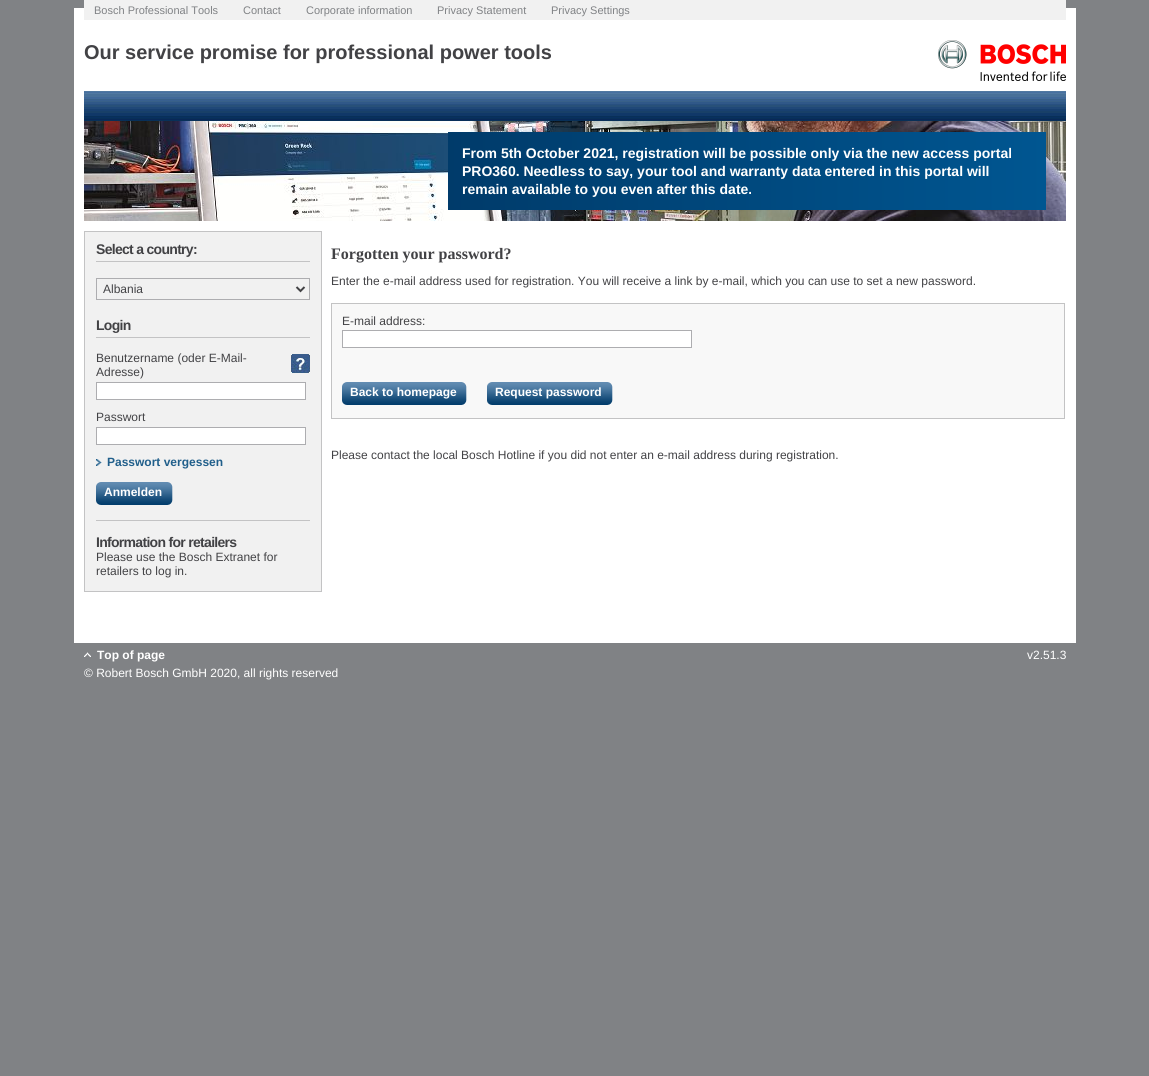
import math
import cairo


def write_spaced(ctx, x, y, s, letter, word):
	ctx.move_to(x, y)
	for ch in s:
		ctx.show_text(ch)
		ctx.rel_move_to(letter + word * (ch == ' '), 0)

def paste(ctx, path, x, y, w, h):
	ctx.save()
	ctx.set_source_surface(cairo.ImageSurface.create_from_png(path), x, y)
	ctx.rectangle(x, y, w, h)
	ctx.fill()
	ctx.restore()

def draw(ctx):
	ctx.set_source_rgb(0.502, 0.51, 0.522)
	ctx.paint()
	ctx.set_source_rgb(1, 1, 1)
	ctx.rectangle(74, 8, 1002, 635)
	ctx.fill()
	ctx.set_source_rgb(0.945, 0.945, 0.945)
	ctx.rectangle(84, 0, 982, 20)
	ctx.fill()
	ctx.select_font_face('Liberation Sans')
	ctx.set_font_size(11)
	ctx.set_source_rgb(0.502, 0.51, 0.522)
	for x, y, s in [
		(94, 14, 'Bosch Professional Tools'),
		(243, 14, 'Contact'),
		(306, 14, 'Corporate information'),
		(437, 14, 'Privacy Statement'),
		(551, 14, 'Privacy Settings'),
	]:
		ctx.move_to(x, y)
		ctx.show_text(s)
	ctx.select_font_face('Liberation Sans', cairo.FONT_SLANT_NORMAL, cairo.FONT_WEIGHT_BOLD)
	ctx.set_font_size(20)
	ctx.set_source_rgb(0.259, 0.259, 0.271)
	ctx.move_to(84, 59)
	ctx.show_text('Our service promise for professional power tools')
	paste(ctx, 'media/1.png', 938, 40, 128, 41)
	paste(ctx, 'media/2.png', 84, 91, 982, 30)
	paste(ctx, 'media/3.png', 84, 121, 982, 100)
	gradient = cairo.LinearGradient(448, 171, 1046, 171)
	gradient.add_color_stop_rgba(0, 0, 0.231, 0.416, 1)
	gradient.add_color_stop_rgba(1, 0, 0.337, 0.569, 1)
	ctx.set_source(gradient)
	ctx.rectangle(448, 132, 598, 78)
	ctx.fill()
	ctx.set_font_size(14)
	ctx.set_source_rgb(1, 1, 1)
	for x, y, s in [
		(462, 158, 'From 5th October 2021, registration will be possible only via the new access portal'),
		(462, 176, 'PRO360. Needless to say, your tool and warranty data entered in this portal will'),
		(462, 194, 'remain available to you even after this date.'),
	]:
		ctx.move_to(x, y)
		ctx.show_text(s)
	ctx.set_source_rgb(0.945, 0.945, 0.945)
	ctx.rectangle(84.5, 231.5, 237, 360)
	ctx.fill_preserve()
	ctx.set_source_rgb(0.765, 0.765, 0.769)
	ctx.set_line_width(1)
	ctx.stroke()
	ctx.set_source_rgb(0.259, 0.259, 0.271)
	write_spaced(ctx, 96, 254, 'Select a country:', -0.7, 0)
	ctx.set_source_rgb(0.765, 0.765, 0.769)
	ctx.rectangle(96, 261, 214, 1)
	ctx.fill()
	ctx.rectangle(96.5, 278.5, 213, 21)
	ctx.set_source_rgb(0.678, 0.678, 0.69)
	ctx.stroke()
	ctx.new_path()
	ctx.move_to(296.5, 287)
	ctx.line_to(300.5, 291)
	ctx.line_to(304.5, 287)
	ctx.set_source_rgb(0.259, 0.259, 0.271)
	ctx.set_line_width(2)
	ctx.stroke()
	ctx.select_font_face('Liberation Sans')
	ctx.set_font_size(12)
	ctx.move_to(103, 293)
	ctx.show_text('Albania')
	ctx.select_font_face('Liberation Sans', cairo.FONT_SLANT_NORMAL, cairo.FONT_WEIGHT_BOLD)
	ctx.set_font_size(14)
	write_spaced(ctx, 96, 330, 'Login', -0.7, 0)
	ctx.set_source_rgb(0.765, 0.765, 0.769)
	ctx.rectangle(96, 337, 214, 1)
	ctx.fill()
	ctx.select_font_face('Liberation Sans')
	ctx.set_font_size(12)
	ctx.set_source_rgb(0.259, 0.259, 0.271)
	ctx.move_to(96, 362)
	ctx.show_text('Benutzername (oder E-Mail-')
	ctx.move_to(96, 376)
	ctx.show_text('Adresse)')
	paste(ctx, 'media/4.png', 291, 354, 19, 19)
	ctx.set_source_rgb(1, 1, 1)
	ctx.rectangle(96.5, 382.5, 209, 17)
	ctx.fill_preserve()
	ctx.set_source_rgb(0.678, 0.678, 0.69)
	ctx.set_line_width(1)
	ctx.stroke()
	ctx.set_source_rgb(0.259, 0.259, 0.271)
	ctx.move_to(96, 421)
	ctx.show_text('Passwort')
	ctx.set_source_rgb(1, 1, 1)
	ctx.rectangle(96.5, 427.5, 209, 17)
	ctx.fill_preserve()
	ctx.set_source_rgb(0.678, 0.678, 0.69)
	ctx.stroke()
	paste(ctx, 'media/5.png', 96, 459, 6, 7)
	ctx.select_font_face('Liberation Sans', cairo.FONT_SLANT_NORMAL, cairo.FONT_WEIGHT_BOLD)
	ctx.set_source_rgb(0.129, 0.373, 0.545)
	ctx.move_to(107, 466)
	ctx.show_text('Passwort vergessen')
	paste(ctx, 'media/6.png', 163, 482, 10, 23)
	paste(ctx, 'media/7.png', 96, 482, 67, 23)
	ctx.set_source_rgb(1, 1, 1)
	ctx.move_to(104, 496)
	ctx.show_text('Anmelden')
	ctx.set_source_rgb(0.765, 0.765, 0.769)
	ctx.rectangle(96, 520, 214, 1)
	ctx.fill()
	ctx.set_font_size(14)
	ctx.set_source_rgb(0.259, 0.259, 0.271)
	write_spaced(ctx, 96, 547, 'Information for retailers', -0.7, 0)
	ctx.select_font_face('Liberation Sans')
	ctx.set_font_size(12)
	ctx.move_to(96, 561)
	ctx.show_text('Please use the Bosch Extranet for')
	ctx.move_to(96, 575)
	ctx.show_text('retailers to log in.')
	ctx.select_font_face('Liberation Serif', cairo.FONT_SLANT_NORMAL, cairo.FONT_WEIGHT_BOLD)
	ctx.set_font_size(16)
	ctx.move_to(331, 259)
	ctx.show_text('Forgotten your password?')
	ctx.select_font_face('Liberation Sans')
	ctx.set_font_size(12)
	ctx.move_to(331, 285)
	ctx.show_text('Enter the e-mail address used for registration. You will receive a link by e-mail, which you can use to set a new password.')
	ctx.set_source_rgb(0.969, 0.969, 0.969)
	ctx.rectangle(331.5, 303.5, 733, 115)
	ctx.fill_preserve()
	ctx.set_source_rgb(0.765, 0.765, 0.769)
	ctx.stroke()
	ctx.set_source_rgb(0.259, 0.259, 0.271)
	ctx.move_to(342, 325)
	ctx.show_text('E-mail address:')
	ctx.set_source_rgb(1, 1, 1)
	ctx.rectangle(342.5, 330.5, 349, 17)
	ctx.fill_preserve()
	ctx.set_source_rgb(0.678, 0.678, 0.69)
	ctx.stroke()
	paste(ctx, 'media/8.png', 457, 382, 10, 23)
	paste(ctx, 'media/9.png', 342, 382, 115, 23)
	ctx.select_font_face('Liberation Sans', cairo.FONT_SLANT_NORMAL, cairo.FONT_WEIGHT_BOLD)
	ctx.set_source_rgb(1, 1, 1)
	ctx.move_to(350, 396)
	ctx.show_text('Back to homepage')
	paste(ctx, 'media/8.png', 603, 382, 10, 23)
	paste(ctx, 'media/10.png', 487, 382, 116, 23)
	ctx.move_to(495, 396)
	ctx.show_text('Request password')
	ctx.select_font_face('Liberation Sans')
	ctx.set_source_rgb(0.259, 0.259, 0.271)
	ctx.move_to(331, 459)
	ctx.show_text('Please contact the local Bosch Hotline if you did not enter an e-mail address during registration.')
	paste(ctx, 'media/11.png', 84, 652, 7, 5)
	ctx.select_font_face('Liberation Sans', cairo.FONT_SLANT_NORMAL, cairo.FONT_WEIGHT_BOLD)
	ctx.set_source_rgb(1, 1, 1)
	ctx.move_to(97, 659)
	ctx.show_text('Top of page')
	ctx.select_font_face('Liberation Sans')
	ctx.move_to(1027, 659)
	ctx.show_text('v2.51.3')
	ctx.move_to(84, 677)
	ctx.show_text('© Robert Bosch GmbH 2020, all rights reserved')


surface = cairo.ImageSurface(cairo.FORMAT_RGB24, 1149, 1076)
ctx = cairo.Context(surface)
options = cairo.FontOptions()
options.set_hint_metrics(cairo.HINT_METRICS_OFF)
options.set_hint_style(cairo.HINT_STYLE_NONE)
ctx.set_font_options(options)
ctx.set_miter_limit(4)
draw(ctx)
surface.write_to_png('image.png')
